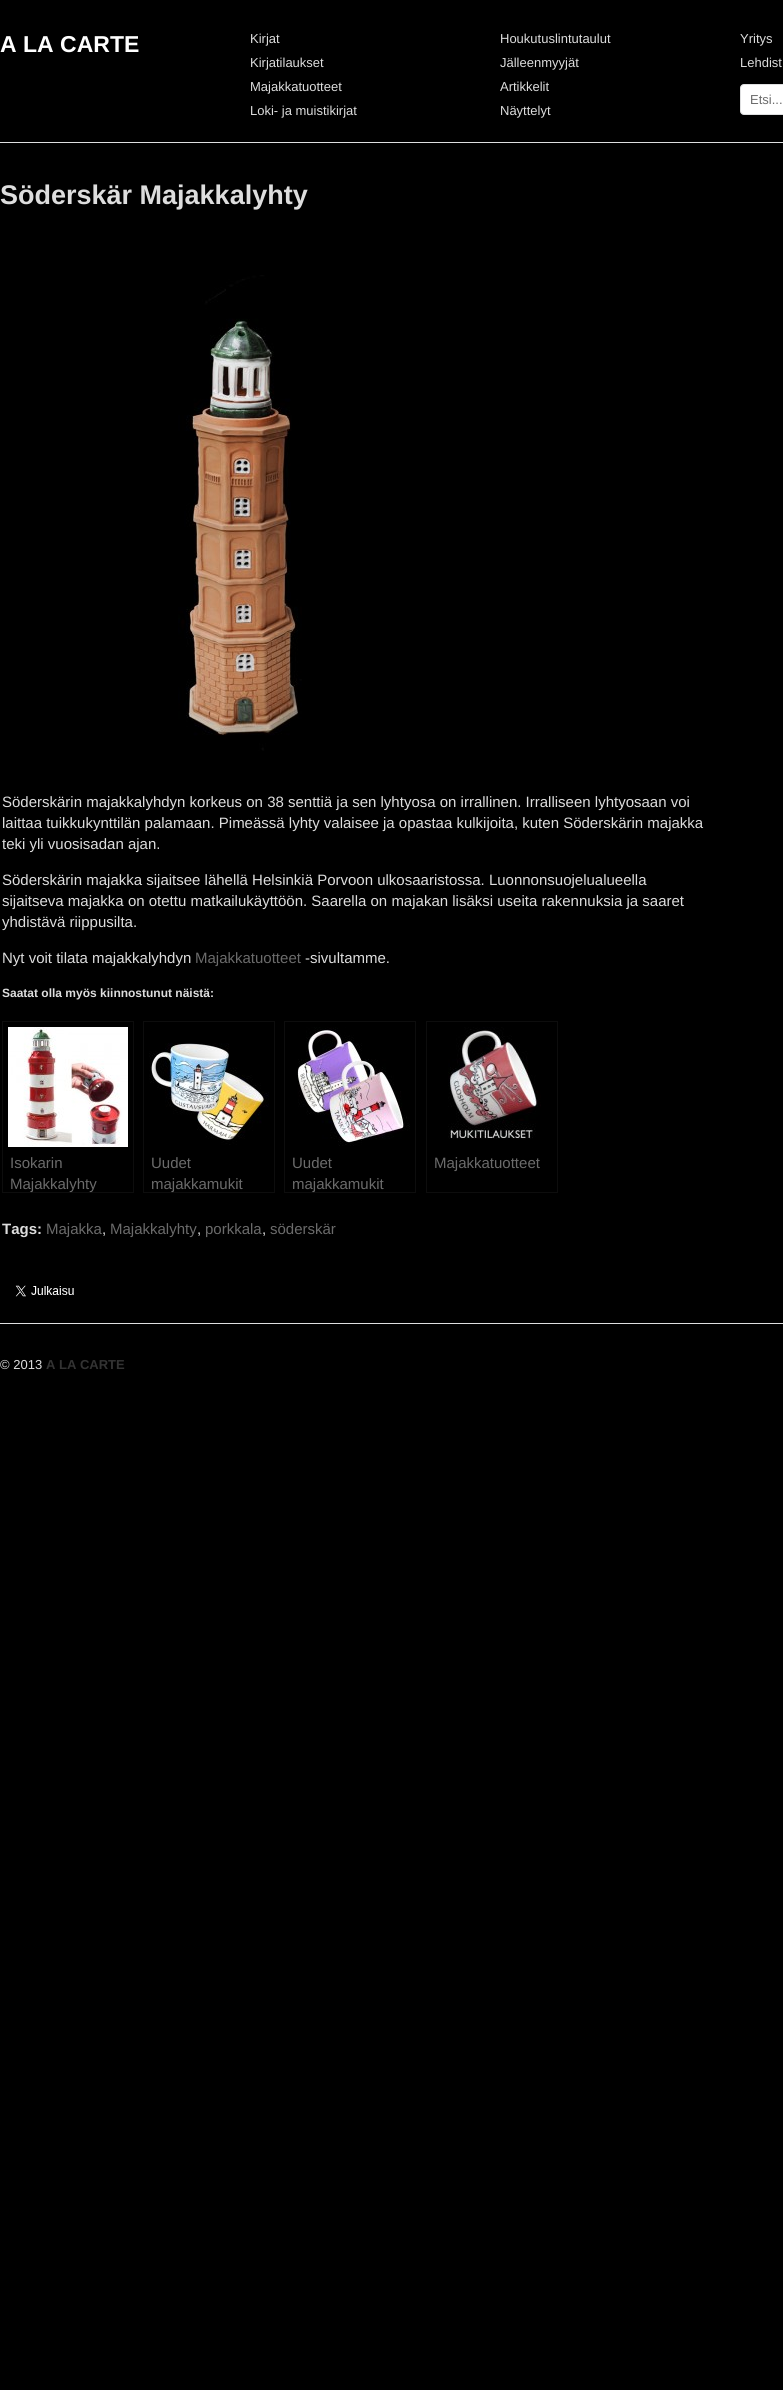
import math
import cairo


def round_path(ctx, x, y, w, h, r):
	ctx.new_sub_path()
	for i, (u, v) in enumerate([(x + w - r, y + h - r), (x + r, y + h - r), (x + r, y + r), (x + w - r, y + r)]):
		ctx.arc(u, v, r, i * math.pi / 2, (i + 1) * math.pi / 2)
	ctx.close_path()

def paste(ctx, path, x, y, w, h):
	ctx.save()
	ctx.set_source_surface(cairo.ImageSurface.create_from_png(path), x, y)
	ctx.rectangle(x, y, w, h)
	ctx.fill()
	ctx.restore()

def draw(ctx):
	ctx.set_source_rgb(0, 0, 0)
	ctx.paint()
	ctx.set_source_rgb(0.871, 0.875, 0.878)
	ctx.rectangle(0, 142, 783, 1)
	ctx.fill()
	ctx.select_font_face('Liberation Sans', cairo.FONT_SLANT_NORMAL, cairo.FONT_WEIGHT_BOLD)
	ctx.set_font_size(23)
	ctx.set_source_rgb(1, 1, 1)
	ctx.move_to(0, 52)
	ctx.show_text('A LA CARTE')
	ctx.select_font_face('Liberation Sans')
	ctx.set_font_size(13)
	ctx.set_source_rgb(0.867, 0.867, 0.867)
	for x, y, s in [
		(250, 43, 'Kirjat'),
		(250, 67, 'Kirjatilaukset'),
		(250, 91, 'Majakkatuotteet'),
		(250, 115, 'Loki- ja muistikirjat'),
		(500, 43, 'Houkutuslintutaulut'),
		(500, 67, 'Jälleenmyyjät'),
		(500, 91, 'Artikkelit'),
		(500, 115, 'Näyttelyt'),
		(740, 43, 'Yritys'),
		(740, 67, 'Lehdist'),
	]:
		ctx.move_to(x, y)
		ctx.show_text(s)
	ctx.set_source_rgb(1, 1, 1)
	round_path(ctx, 740.5, 84.5, 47, 30, 3.5)
	ctx.fill_preserve()
	ctx.set_source_rgb(0.871, 0.875, 0.878)
	ctx.set_line_width(1)
	ctx.stroke()
	ctx.set_source_rgb(0.42, 0.42, 0.42)
	ctx.move_to(750, 104)
	ctx.show_text('Etsi...')
	ctx.select_font_face('Liberation Sans', cairo.FONT_SLANT_NORMAL, cairo.FONT_WEIGHT_BOLD)
	ctx.set_font_size(27)
	ctx.set_source_rgb(0.867, 0.867, 0.867)
	ctx.move_to(0, 204)
	ctx.show_text('Söderskär Majakkalyhty')
	paste(ctx, 'media/1.png', 178, 275, 124, 476)
	ctx.select_font_face('Liberation Sans')
	ctx.set_font_size(15)
	for x, y, s in [
		(2, 807, 'Söderskärin majakkalyhdyn korkeus on 38 senttiä ja sen lyhtyosa on irrallinen. Irralliseen lyhtyosaan voi'),
		(2, 828, 'laittaa tuikkukynttilän palamaan. Pimeässä lyhty valaisee ja opastaa kulkijoita, kuten Söderskärin majakka'),
		(2, 849, 'teki yli vuosisadan ajan.'),
		(2, 885, 'Söderskärin majakka sijaitsee lähellä Helsinkiä Porvoon ulkosaaristossa. Luonnonsuojelualueella'),
		(2, 906, 'sijaitseva majakka on otettu matkailukäyttöön. Saarella on majakan lisäksi useita rakennuksia ja saaret'),
		(2, 927, 'yhdistävä riippusilta.'),
		(2, 963, 'Nyt voit tilata majakkalyhdyn'),
	]:
		ctx.move_to(x, y)
		ctx.show_text(s)
	ctx.set_source_rgb(0.42, 0.42, 0.42)
	ctx.move_to(195, 963)
	ctx.show_text('Majakkatuotteet')
	ctx.set_source_rgb(0.867, 0.867, 0.867)
	ctx.move_to(305, 963)
	ctx.show_text('-sivultamme.')
	ctx.select_font_face('Liberation Sans', cairo.FONT_SLANT_NORMAL, cairo.FONT_WEIGHT_BOLD)
	ctx.set_font_size(12)
	ctx.move_to(2, 997)
	ctx.show_text('Saatat olla myös kiinnostunut näistä:')
	ctx.rectangle(2.5, 1021.5, 131, 171)
	ctx.set_source_rgb(0.051, 0.051, 0.051)
	ctx.stroke()
	paste(ctx, 'media/2.png', 8, 1027, 120, 120)
	ctx.select_font_face('Liberation Sans')
	ctx.set_font_size(15)
	ctx.set_source_rgb(0.42, 0.42, 0.42)
	ctx.move_to(10, 1168)
	ctx.show_text('Isokarin')
	ctx.move_to(10, 1189)
	ctx.show_text('Majakkalyhty')
	ctx.rectangle(143.5, 1021.5, 131, 171)
	ctx.set_source_rgb(0.051, 0.051, 0.051)
	ctx.stroke()
	paste(ctx, 'media/3.png', 149, 1043, 120, 102)
	ctx.set_source_rgb(0.42, 0.42, 0.42)
	ctx.move_to(151, 1168)
	ctx.show_text('Uudet')
	ctx.move_to(151, 1189)
	ctx.show_text('majakkamukit')
	ctx.rectangle(284.5, 1021.5, 131, 171)
	ctx.set_source_rgb(0.051, 0.051, 0.051)
	ctx.stroke()
	paste(ctx, 'media/4.png', 297, 1027, 113, 119)
	ctx.set_source_rgb(0.42, 0.42, 0.42)
	ctx.move_to(292, 1168)
	ctx.show_text('Uudet')
	ctx.move_to(292, 1189)
	ctx.show_text('majakkamukit')
	ctx.rectangle(426.5, 1021.5, 131, 171)
	ctx.set_source_rgb(0.051, 0.051, 0.051)
	ctx.stroke()
	paste(ctx, 'media/5.png', 448, 1027, 93, 112)
	ctx.set_source_rgb(0.42, 0.42, 0.42)
	ctx.move_to(434, 1168)
	ctx.show_text('Majakkatuotteet')
	ctx.select_font_face('Liberation Sans', cairo.FONT_SLANT_NORMAL, cairo.FONT_WEIGHT_BOLD)
	ctx.set_source_rgb(0.867, 0.867, 0.867)
	ctx.move_to(2, 1234)
	ctx.show_text('Tags:')
	ctx.select_font_face('Liberation Sans')
	ctx.set_source_rgb(0.42, 0.42, 0.42)
	ctx.move_to(46, 1234)
	ctx.show_text('Majakka')
	ctx.set_source_rgb(0.867, 0.867, 0.867)
	ctx.move_to(102, 1234)
	ctx.show_text(',')
	ctx.set_source_rgb(0.42, 0.42, 0.42)
	ctx.move_to(110, 1234)
	ctx.show_text('Majakkalyhty')
	ctx.set_source_rgb(0.867, 0.867, 0.867)
	ctx.move_to(197, 1234)
	ctx.show_text(',')
	ctx.set_source_rgb(0.42, 0.42, 0.42)
	ctx.move_to(205, 1234)
	ctx.show_text('porkkala')
	ctx.set_source_rgb(0.867, 0.867, 0.867)
	ctx.move_to(262, 1234)
	ctx.show_text(',')
	ctx.set_source_rgb(0.42, 0.42, 0.42)
	ctx.move_to(270, 1234)
	ctx.show_text('söderskär')
	paste(ctx, 'media/6.png', 15, 1285, 59, 12)
	ctx.set_source_rgb(0.871, 0.875, 0.878)
	ctx.rectangle(0, 1323, 783, 1)
	ctx.fill()
	ctx.set_font_size(13)
	ctx.set_source_rgb(0.867, 0.867, 0.867)
	ctx.move_to(0, 1369)
	ctx.show_text('© 2013')
	ctx.select_font_face('Liberation Sans', cairo.FONT_SLANT_NORMAL, cairo.FONT_WEIGHT_BOLD)
	ctx.set_source_rgb(0.2, 0.2, 0.2)
	ctx.move_to(46, 1369)
	ctx.show_text('A LA CARTE')


surface = cairo.ImageSurface(cairo.FORMAT_RGB24, 783, 2390)
ctx = cairo.Context(surface)
options = cairo.FontOptions()
options.set_hint_metrics(cairo.HINT_METRICS_OFF)
options.set_hint_style(cairo.HINT_STYLE_NONE)
ctx.set_font_options(options)
ctx.set_miter_limit(4)
draw(ctx)
surface.write_to_png('image.png')
